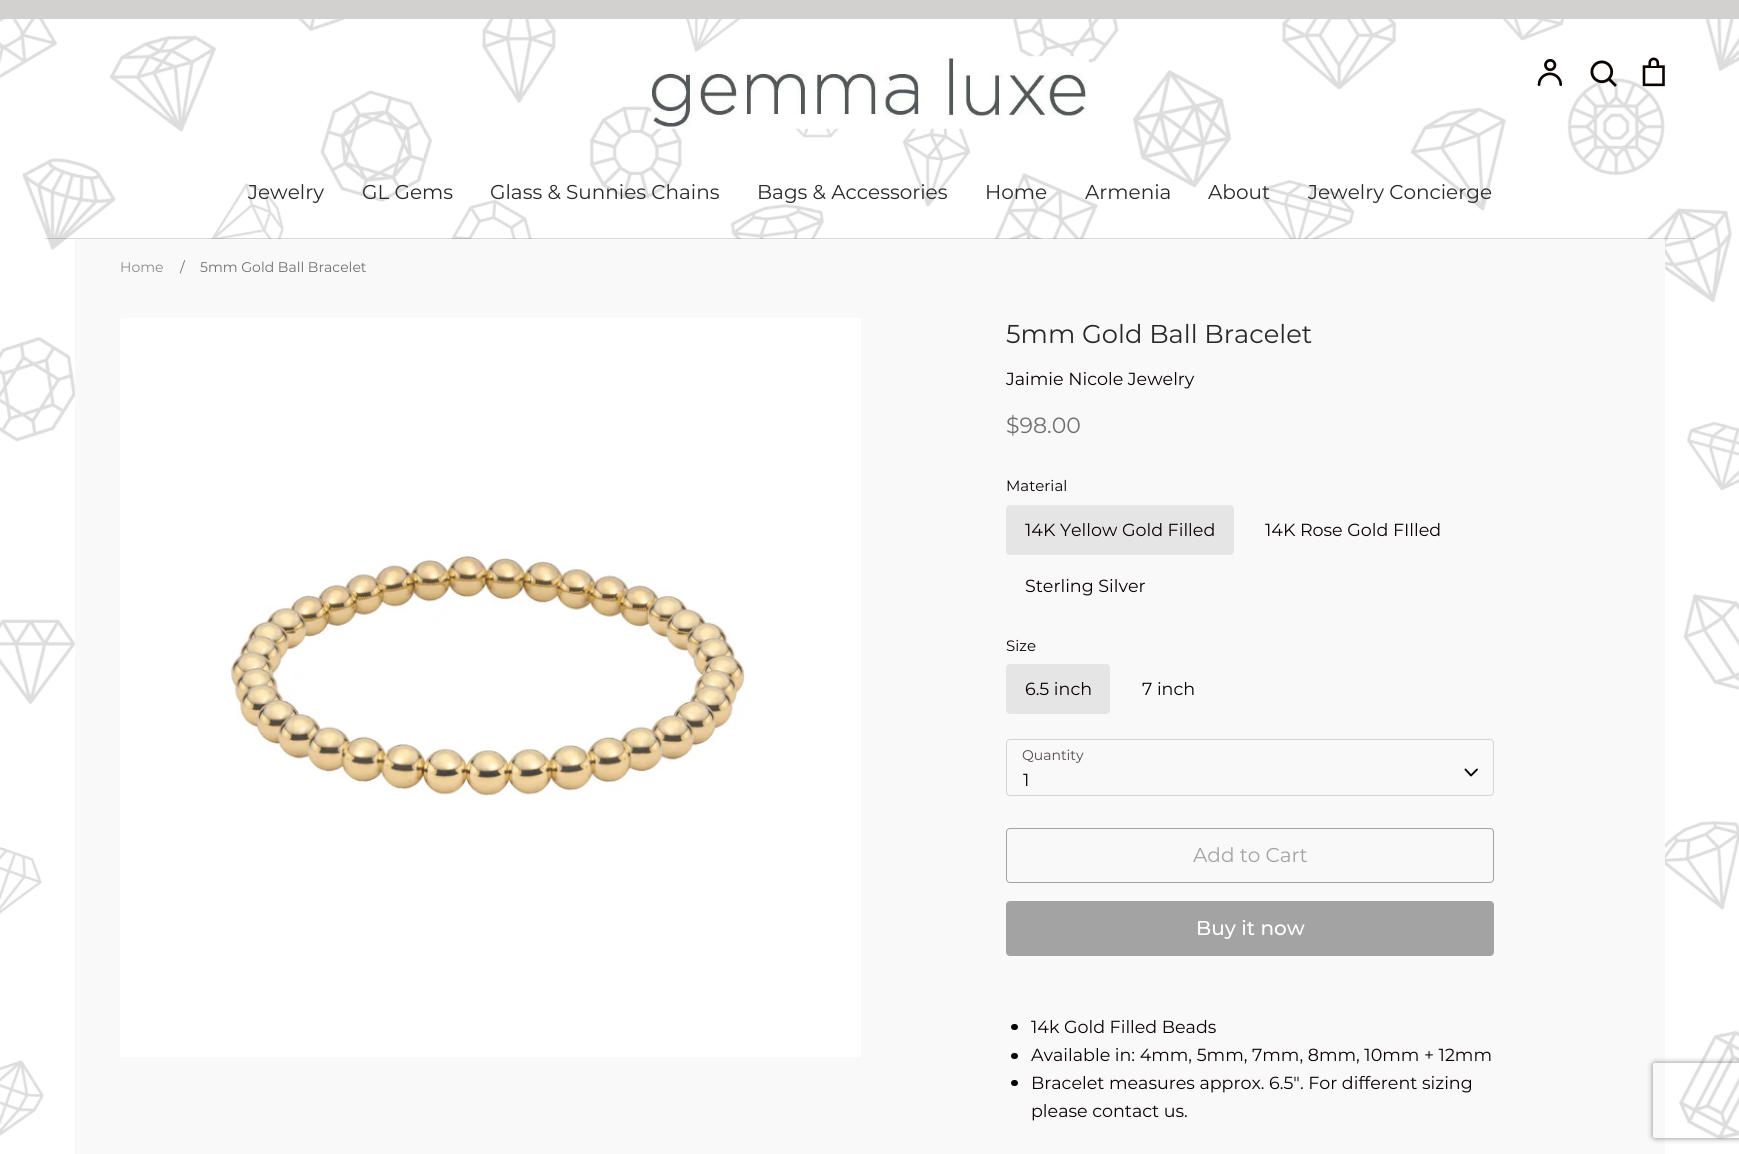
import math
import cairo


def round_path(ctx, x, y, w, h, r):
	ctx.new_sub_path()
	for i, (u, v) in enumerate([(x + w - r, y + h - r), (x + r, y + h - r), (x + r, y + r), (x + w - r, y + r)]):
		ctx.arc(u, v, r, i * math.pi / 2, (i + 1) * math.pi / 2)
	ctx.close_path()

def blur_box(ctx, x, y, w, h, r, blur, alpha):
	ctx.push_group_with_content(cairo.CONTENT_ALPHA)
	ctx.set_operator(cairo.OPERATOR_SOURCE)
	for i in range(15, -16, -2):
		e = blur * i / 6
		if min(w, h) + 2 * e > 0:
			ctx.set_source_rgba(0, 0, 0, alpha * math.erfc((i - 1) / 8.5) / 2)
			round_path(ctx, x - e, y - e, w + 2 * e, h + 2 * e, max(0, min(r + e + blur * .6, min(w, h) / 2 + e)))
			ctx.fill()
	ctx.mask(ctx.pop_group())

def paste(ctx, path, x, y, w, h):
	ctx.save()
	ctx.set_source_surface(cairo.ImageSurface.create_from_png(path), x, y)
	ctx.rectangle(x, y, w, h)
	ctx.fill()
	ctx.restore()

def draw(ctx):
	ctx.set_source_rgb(1, 1, 1)
	ctx.paint()
	paste(ctx, 'media/1.png', 0, 19, 1739, 1135)
	ctx.set_source_rgb(0.824, 0.82, 0.816)
	ctx.rectangle(0, 0, 1739, 19)
	ctx.fill()
	paste(ctx, 'media/2.png', 651, 56, 438, 73)
	paste(ctx, 'media/3.png', 1537, 59, 26, 27)
	paste(ctx, 'media/4.png', 1590, 60, 27, 27)
	paste(ctx, 'media/5.png', 1642, 57, 23, 30)
	ctx.set_source_rgba(0.039, 0.004, 0.004, 0.15)
	ctx.rectangle(45, 238, 1650, 1)
	ctx.fill()
	ctx.select_font_face('Montserrat')
	ctx.set_font_size(20)
	ctx.set_source_rgb(0.161, 0.161, 0.161)
	for x, y, s in [
		(248, 199, 'Jewelry'),
		(362, 199, 'GL Gems'),
		(490, 199, 'Glass & Sunnies Chains'),
		(757, 199, 'Bags & Accessories'),
		(985, 199, 'Home'),
		(1085, 199, 'Armenia'),
		(1208, 199, 'About'),
		(1308, 199, 'Jewelry Concierge'),
	]:
		ctx.move_to(x, y)
		ctx.show_text(s)
	ctx.set_source_rgb(0.976, 0.976, 0.976)
	ctx.rectangle(75, 239, 1590, 915)
	ctx.fill()
	ctx.set_font_size(14)
	ctx.set_source_rgb(0.541, 0.545, 0.545)
	ctx.move_to(120, 272)
	ctx.show_text('Home')
	ctx.set_source_rgb(0.431, 0.435, 0.435)
	ctx.move_to(180, 272)
	ctx.show_text('/')
	ctx.move_to(200, 272)
	ctx.show_text('5mm Gold Ball Bracelet')
	paste(ctx, 'media/6.png', 120, 318, 741, 739)
	ctx.set_font_size(25.75)
	ctx.set_source_rgb(0.161, 0.161, 0.161)
	ctx.move_to(1006, 343)
	ctx.show_text('5mm Gold Ball Bracelet')
	ctx.set_font_size(17.5)
	ctx.set_source_rgb(0.039, 0.004, 0.004)
	ctx.move_to(1006, 385)
	ctx.show_text('Jaimie Nicole Jewelry')
	ctx.set_font_size(22)
	ctx.set_source_rgb(0.431, 0.435, 0.435)
	ctx.move_to(1006, 433)
	ctx.show_text('$98.00')
	ctx.set_font_size(15)
	ctx.set_source_rgb(0.039, 0.004, 0.004)
	ctx.move_to(1006, 491)
	ctx.show_text('Material')
	ctx.set_source_rgb(0.898, 0.898, 0.898)
	round_path(ctx, 1006, 505, 228, 50, 4)
	ctx.fill()
	ctx.set_font_size(17.5)
	ctx.set_source_rgb(0.039, 0.004, 0.004)
	for x, y, s in [
		(1025, 536, '14K Yellow Gold Filled'),
		(1265, 536, '14K Rose Gold FIlled'),
		(1025, 592, 'Sterling Silver'),
	]:
		ctx.move_to(x, y)
		ctx.show_text(s)
	ctx.set_font_size(15)
	ctx.move_to(1006, 651)
	ctx.show_text('Size')
	ctx.set_source_rgb(0.898, 0.898, 0.898)
	round_path(ctx, 1006, 664, 104, 50, 4)
	ctx.fill()
	ctx.set_font_size(17.5)
	ctx.set_source_rgb(0.039, 0.004, 0.004)
	ctx.move_to(1025, 695)
	ctx.show_text('6.5 inch')
	ctx.move_to(1142, 695)
	ctx.show_text('7 inch')
	ctx.set_font_size(14)
	ctx.set_source_rgb(0.322, 0.294, 0.294)
	ctx.move_to(1022, 760)
	ctx.show_text('Quantity')
	round_path(ctx, 1006.5, 739.5, 487, 56, 3.5)
	ctx.set_source_rgb(0.835, 0.831, 0.831)
	ctx.set_line_width(1)
	ctx.stroke()
	ctx.set_font_size(17.5)
	ctx.set_source_rgb(0.039, 0.004, 0.004)
	ctx.move_to(1023, 786)
	ctx.show_text('1')
	ctx.new_path()
	ctx.move_to(1465.5, 769.5)
	ctx.line_to(1471, 775.5)
	ctx.line_to(1477, 769.5)
	ctx.set_line_width(1.9)
	ctx.set_line_cap(cairo.LINE_CAP_ROUND)
	ctx.set_line_join(cairo.LINE_JOIN_ROUND)
	ctx.stroke()
	round_path(ctx, 1006.5, 828.5, 487, 54, 3.5)
	ctx.set_source_rgb(0.639, 0.639, 0.639)
	ctx.set_line_width(1)
	ctx.set_line_cap(cairo.LINE_CAP_BUTT)
	ctx.set_line_join(cairo.LINE_JOIN_MITER)
	ctx.stroke()
	ctx.set_font_size(20)
	ctx.move_to(1193, 862)
	ctx.show_text('Add to Cart')
	round_path(ctx, 1006.5, 901.5, 487, 54, 3.5)
	ctx.fill_preserve()
	ctx.stroke()
	ctx.select_font_face('Montserrat Medium')
	ctx.set_source_rgb(1, 1, 1)
	ctx.move_to(1196, 935)
	ctx.show_text('Buy it now')
	ctx.set_source_rgb(0.039, 0.004, 0.004)
	round_path(ctx, 1011, 1024, 7, 6, 3)
	ctx.fill()
	ctx.select_font_face('Montserrat')
	ctx.set_font_size(17.5)
	ctx.move_to(1031, 1033)
	ctx.show_text('14k Gold Filled Beads')
	round_path(ctx, 1011, 1053, 7, 6, 3)
	ctx.fill()
	ctx.move_to(1031, 1061)
	ctx.show_text('Available in: 4mm, 5mm, 7mm, 8mm, 10mm + 12mm')
	round_path(ctx, 1011, 1080, 7, 6, 3)
	ctx.fill()
	ctx.move_to(1031, 1089)
	ctx.show_text('Bracelet measures approx. 6.5". For different sizing')
	ctx.move_to(1031, 1117)
	ctx.show_text('please contact us.')
	ctx.save()
	ctx.set_fill_rule(cairo.FILL_RULE_EVEN_ODD)
	ctx.new_path()
	ctx.move_to(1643, 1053)
	ctx.line_to(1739, 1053)
	ctx.line_to(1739, 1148)
	ctx.line_to(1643, 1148)
	ctx.close_path()
	ctx.move_to(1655.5, 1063)
	ctx.line_to(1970.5, 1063)
	ctx.curve_to(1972, 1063, 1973, 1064, 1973, 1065.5)
	ctx.line_to(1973, 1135.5)
	ctx.curve_to(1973, 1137, 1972, 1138, 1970.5, 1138)
	ctx.line_to(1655.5, 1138)
	ctx.curve_to(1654, 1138, 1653, 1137, 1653, 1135.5)
	ctx.line_to(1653, 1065.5)
	ctx.curve_to(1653, 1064, 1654, 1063, 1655.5, 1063)
	ctx.close_path()
	ctx.clip()
	ctx.set_source_rgb(0.502, 0.502, 0.502)
	blur_box(ctx, 1653, 1063, 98, 75, 2.5, 3, 1)
	ctx.restore()


surface = cairo.ImageSurface(cairo.FORMAT_RGB24, 1739, 1154)
ctx = cairo.Context(surface)
options = cairo.FontOptions()
options.set_hint_metrics(cairo.HINT_METRICS_OFF)
options.set_hint_style(cairo.HINT_STYLE_NONE)
ctx.set_font_options(options)
ctx.set_miter_limit(4)
draw(ctx)
surface.write_to_png('image.png')
